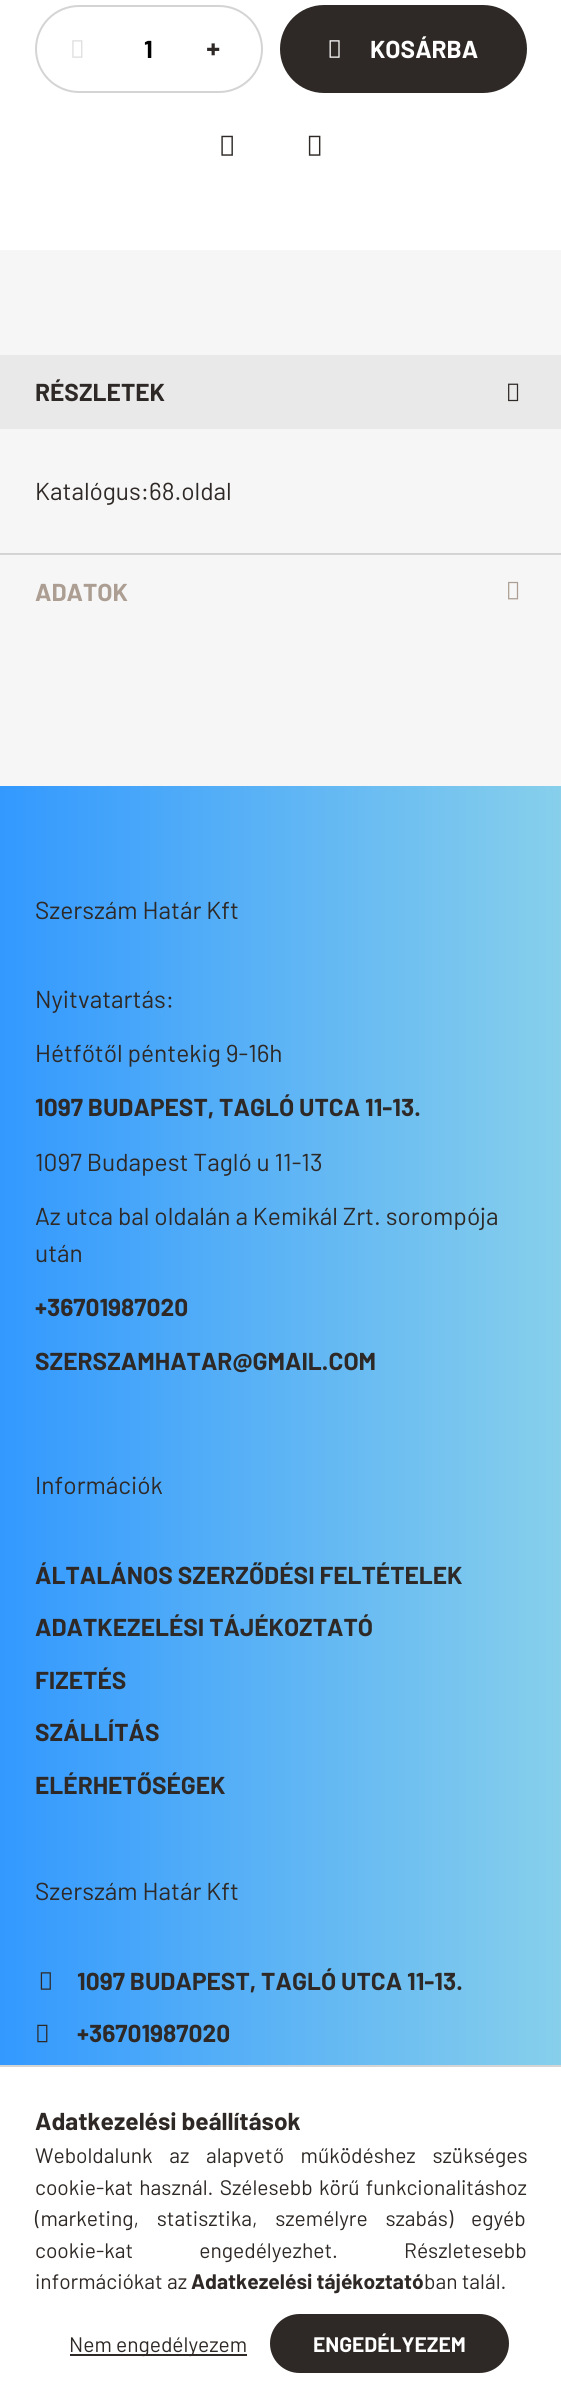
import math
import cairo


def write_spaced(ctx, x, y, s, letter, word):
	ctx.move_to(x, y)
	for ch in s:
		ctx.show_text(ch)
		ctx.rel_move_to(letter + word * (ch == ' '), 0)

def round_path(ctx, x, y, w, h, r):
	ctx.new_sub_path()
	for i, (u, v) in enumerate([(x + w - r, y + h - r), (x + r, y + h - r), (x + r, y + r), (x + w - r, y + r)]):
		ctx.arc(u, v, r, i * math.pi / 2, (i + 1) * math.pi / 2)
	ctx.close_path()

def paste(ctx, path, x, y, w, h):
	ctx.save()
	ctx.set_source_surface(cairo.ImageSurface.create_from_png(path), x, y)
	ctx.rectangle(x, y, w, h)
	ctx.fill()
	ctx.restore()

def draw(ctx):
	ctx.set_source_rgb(0.961, 0.961, 0.961)
	ctx.paint()
	ctx.set_source_rgb(1, 1, 1)
	ctx.rectangle(0, 0, 561, 250)
	ctx.fill()
	round_path(ctx, 36, 6, 226, 86, 43)
	ctx.set_source_rgb(0.835, 0.831, 0.831)
	ctx.stroke()
	paste(ctx, 'media/1.png', 72, 40, 11, 18)
	ctx.select_font_face('Barlow', cairo.FONT_SLANT_NORMAL, cairo.FONT_WEIGHT_BOLD)
	ctx.set_font_size(24.5)
	ctx.set_source_rgb(0, 0, 0)
	ctx.move_to(144, 58)
	ctx.show_text('1')
	ctx.select_font_face('Noto Sans Black')
	ctx.set_source_rgb(0.18, 0.161, 0.149)
	ctx.move_to(206, 58)
	ctx.show_text('+')
	gradient = cairo.LinearGradient(280, 49, 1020, 49)
	gradient.add_color_stop_rgba(0.33, 0.18, 0.161, 0.149, 1)
	gradient.add_color_stop_rgba(0.67, 0.682, 0.706, 0.8, 1)
	ctx.set_source(gradient)
	round_path(ctx, 280, 5, 247, 88, 44)
	ctx.fill()
	paste(ctx, 'media/2.png', 329, 40, 11, 18)
	ctx.select_font_face('Barlow', cairo.FONT_SLANT_NORMAL, cairo.FONT_WEIGHT_BOLD)
	ctx.set_source_rgb(1, 1, 1)
	ctx.move_to(370, 58)
	ctx.show_text('KOSÁRBA')
	paste(ctx, 'media/3.png', 221, 135, 12, 21)
	paste(ctx, 'media/4.png', 308, 135, 13, 21)
	ctx.set_source_rgb(0.914, 0.914, 0.914)
	ctx.rectangle(0, 355, 561, 74)
	ctx.fill()
	ctx.set_source_rgb(0.18, 0.161, 0.149)
	ctx.move_to(35, 401)
	ctx.show_text('RÉSZLETEK')
	paste(ctx, 'media/5.png', 508, 383, 11, 19)
	ctx.select_font_face('Barlow')
	ctx.move_to(35, 500)
	ctx.show_text('Katalógus:68.oldal')
	ctx.set_source_rgb(0.835, 0.831, 0.831)
	ctx.rectangle(0, 553, 561, 2)
	ctx.fill()
	ctx.select_font_face('Barlow', cairo.FONT_SLANT_NORMAL, cairo.FONT_WEIGHT_BOLD)
	ctx.set_source_rgb(0.675, 0.62, 0.573)
	ctx.move_to(35, 601)
	ctx.show_text('ADATOK')
	paste(ctx, 'media/6.png', 508, 581, 11, 19)
	gradient = cairo.LinearGradient(0, 1204, 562, 1204)
	gradient.add_color_stop_rgba(0, 0.2, 0.6, 1, 1)
	gradient.add_color_stop_rgba(1, 0.529, 0.812, 0.922, 1)
	ctx.set_source(gradient)
	ctx.rectangle(0, 786, 561, 1279)
	ctx.fill()
	ctx.select_font_face('Barlow')
	ctx.set_source_rgb(0.18, 0.161, 0.149)
	for x, y, s in [
		(35, 919, 'Szerszám Határ Kft'),
		(35, 1008, 'Nyitvatartás:'),
		(35, 1062, 'Hétfőtől péntekig 9-16h'),
	]:
		ctx.move_to(x, y)
		ctx.show_text(s)
	ctx.select_font_face('Barlow', cairo.FONT_SLANT_NORMAL, cairo.FONT_WEIGHT_BOLD)
	ctx.move_to(35, 1116)
	ctx.show_text('1097 BUDAPEST, TAGLÓ UTCA 11-13.')
	ctx.select_font_face('Barlow')
	for x, y, s in [
		(35, 1171, '1097 Budapest Tagló u 11-13'),
		(35, 1225, 'Az utca bal oldalán a Kemikál Zrt. sorompója'),
		(35, 1262, 'után'),
	]:
		ctx.move_to(x, y)
		ctx.show_text(s)
	ctx.select_font_face('Barlow', cairo.FONT_SLANT_NORMAL, cairo.FONT_WEIGHT_BOLD)
	ctx.move_to(35, 1316)
	ctx.show_text('+36701987020')
	ctx.move_to(35, 1370)
	ctx.show_text('SZERSZAMHATAR@GMAIL.COM')
	ctx.select_font_face('Barlow')
	ctx.move_to(35, 1494)
	ctx.show_text('Információk')
	ctx.select_font_face('Barlow', cairo.FONT_SLANT_NORMAL, cairo.FONT_WEIGHT_BOLD)
	for x, y, s in [
		(35, 1584, 'ÁLTALÁNOS SZERZŐDÉSI FELTÉTELEK'),
		(35, 1636, 'ADATKEZELÉSI TÁJÉKOZTATÓ'),
		(35, 1689, 'FIZETÉS'),
		(35, 1741, 'SZÁLLÍTÁS'),
		(35, 1794, 'ELÉRHETŐSÉGEK'),
	]:
		ctx.move_to(x, y)
		ctx.show_text(s)
	ctx.select_font_face('Barlow')
	ctx.move_to(35, 1900)
	ctx.show_text('Szerszám Határ Kft')
	paste(ctx, 'media/7.png', 40, 1972, 11, 18)
	ctx.select_font_face('Barlow', cairo.FONT_SLANT_NORMAL, cairo.FONT_WEIGHT_BOLD)
	ctx.move_to(77, 1990)
	ctx.show_text('1097 BUDAPEST, TAGLÓ UTCA 11-13.')
	paste(ctx, 'media/8.png', 37, 2024, 11, 19)
	ctx.move_to(77, 2042)
	ctx.show_text('+36701987020')
	ctx.set_source_rgb(1, 1, 1)
	ctx.rectangle(0, 2067, 561, 341)
	ctx.fill()
	ctx.set_source_rgb(0.835, 0.831, 0.831)
	ctx.rectangle(0, 2065, 561, 2)
	ctx.fill()
	ctx.set_source_rgb(0.18, 0.161, 0.149)
	ctx.move_to(35, 2130)
	ctx.show_text('Adatkezelési beállítások')
	ctx.select_font_face('Barlow')
	ctx.set_font_size(21)
	write_spaced(ctx, 35, 2163, 'Weboldalunk az alapvető működéshez szükséges', 0, 12.5)
	write_spaced(ctx, 35, 2195, 'cookie-kat használ. Szélesebb körű funkcionalitáshoz', 0, 2)
	write_spaced(ctx, 35, 2226, '(marketing, statisztika, személyre szabás) egyéb', 0, 13.5)
	write_spaced(ctx, 35, 2258, 'cookie-kat engedélyezhet. Részletesebb', 0, 62)
	ctx.move_to(35, 2289)
	ctx.show_text('információkat az')
	ctx.select_font_face('Barlow', cairo.FONT_SLANT_NORMAL, cairo.FONT_WEIGHT_BOLD)
	ctx.move_to(191, 2289)
	ctx.show_text('Adatkezelési tájékoztató')
	ctx.select_font_face('Barlow')
	ctx.move_to(424, 2289)
	ctx.show_text('ban talál.')
	ctx.rectangle(70, 2354, 177, 2)
	ctx.fill()
	ctx.move_to(69, 2352)
	ctx.show_text('Nem engedélyezem')
	gradient = cairo.LinearGradient(270, 2343, 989, 2343)
	gradient.add_color_stop_rgba(0.33, 0.18, 0.161, 0.149, 1)
	gradient.add_color_stop_rgba(0.67, 0.682, 0.706, 0.8, 1)
	ctx.set_source(gradient)
	round_path(ctx, 270, 2314, 239, 59, 29.5)
	ctx.fill()
	ctx.select_font_face('Barlow', cairo.FONT_SLANT_NORMAL, cairo.FONT_WEIGHT_BOLD)
	ctx.set_source_rgb(1, 1, 1)
	ctx.move_to(313, 2352)
	ctx.show_text('ENGEDÉLYEZEM')


surface = cairo.ImageSurface(cairo.FORMAT_RGB24, 561, 2408)
ctx = cairo.Context(surface)
options = cairo.FontOptions()
options.set_hint_metrics(cairo.HINT_METRICS_OFF)
options.set_hint_style(cairo.HINT_STYLE_NONE)
ctx.set_font_options(options)
ctx.set_miter_limit(4)
draw(ctx)
surface.write_to_png('image.png')
